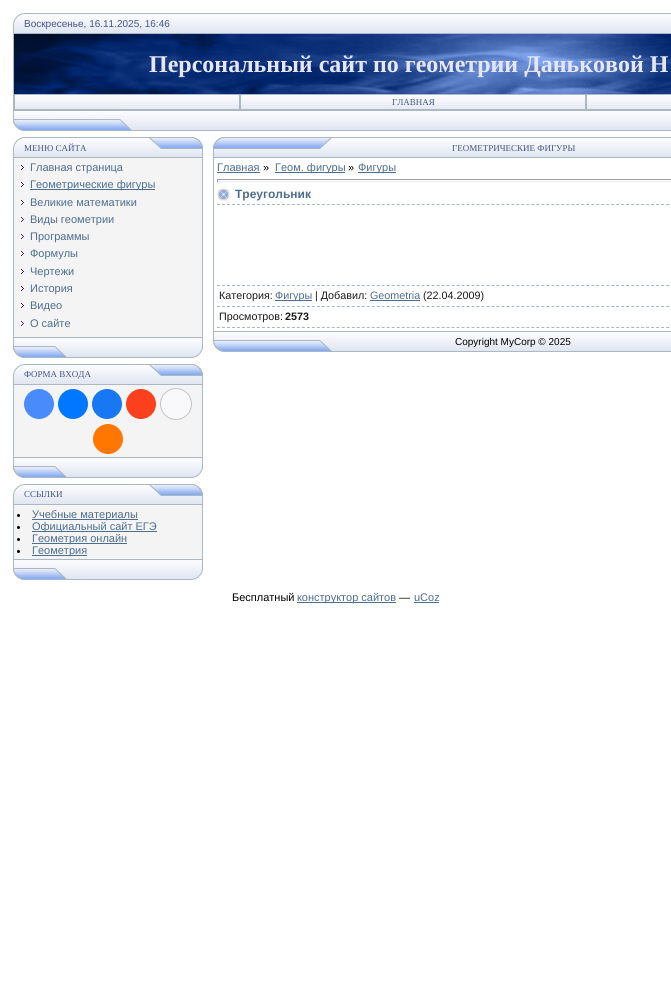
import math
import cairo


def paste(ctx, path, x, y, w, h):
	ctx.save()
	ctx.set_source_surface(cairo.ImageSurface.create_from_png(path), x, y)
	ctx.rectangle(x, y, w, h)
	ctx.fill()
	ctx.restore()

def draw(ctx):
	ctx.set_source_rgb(1, 1, 1)
	ctx.paint()
	paste(ctx, 'media/1.png', 13, 13, 11, 21)
	paste(ctx, 'media/2.png', 24, 13, 647, 21)
	ctx.select_font_face('Liberation Sans')
	ctx.set_font_size(10)
	ctx.set_source_rgb(0.267, 0.333, 0.533)
	ctx.move_to(24, 27)
	ctx.show_text('Воскресенье, 16.11.2025, 16:46')
	ctx.set_source_rgb(0.663, 0.722, 0.761)
	ctx.rectangle(13, 34, 1, 76)
	ctx.fill()
	paste(ctx, 'media/3.png', 14, 34, 657, 60)
	ctx.select_font_face('Liberation Serif', cairo.FONT_SLANT_NORMAL, cairo.FONT_WEIGHT_BOLD)
	ctx.set_font_size(24)
	ctx.set_source_rgb(0.902, 0.902, 0.98)
	ctx.move_to(149, 72)
	ctx.show_text('Персональный сайт по геометрии Даньковой Н')
	paste(ctx, 'media/4.png', 15, 95, 224, 14)
	ctx.rectangle(14.5, 94.5, 225, 15)
	ctx.set_source_rgb(0.663, 0.722, 0.761)
	ctx.set_line_width(1)
	ctx.stroke()
	paste(ctx, 'media/5.png', 241, 95, 344, 14)
	ctx.rectangle(240.5, 94.5, 345, 15)
	ctx.stroke()
	ctx.select_font_face('Liberation Serif')
	ctx.set_font_size(9)
	ctx.set_source_rgb(0.267, 0.333, 0.533)
	ctx.move_to(392, 105)
	ctx.show_text('ГЛАВНАЯ')
	paste(ctx, 'media/6.png', 587, 95, 84, 14)
	ctx.rectangle(586.5, 94.5, 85, 15)
	ctx.set_source_rgb(0.663, 0.722, 0.761)
	ctx.stroke()
	paste(ctx, 'media/7.png', 13, 110, 119, 21)
	paste(ctx, 'media/8.png', 132, 110, 539, 21)
	paste(ctx, 'media/1.png', 13, 137, 11, 21)
	paste(ctx, 'media/9.png', 24, 137, 125, 21)
	ctx.set_source_rgb(0.267, 0.333, 0.533)
	ctx.move_to(24, 151)
	ctx.show_text('МЕНЮ САЙТА')
	paste(ctx, 'media/10.png', 149, 137, 54, 21)
	ctx.set_source_rgb(0.957, 0.957, 0.957)
	ctx.rectangle(14, 158, 188, 179)
	ctx.fill()
	ctx.set_source_rgb(0.663, 0.722, 0.761)
	ctx.rectangle(202, 158, 1, 179)
	ctx.rectangle(13, 158, 1, 179)
	ctx.fill()
	paste(ctx, 'media/11.png', 20, 165, 4, 5)
	ctx.select_font_face('Liberation Sans')
	ctx.set_font_size(11)
	ctx.set_source_rgb(0.302, 0.427, 0.569)
	ctx.move_to(30, 171)
	ctx.show_text('Главная страница')
	paste(ctx, 'media/11.png', 20, 182, 4, 5)
	ctx.rectangle(30, 189, 125, 1)
	ctx.fill()
	ctx.move_to(30, 188)
	ctx.show_text('Геометрические фигуры')
	paste(ctx, 'media/11.png', 20, 200, 4, 5)
	ctx.move_to(30, 206)
	ctx.show_text('Великие математики')
	paste(ctx, 'media/11.png', 20, 217, 4, 5)
	ctx.move_to(30, 223)
	ctx.show_text('Виды геометрии')
	paste(ctx, 'media/11.png', 20, 234, 4, 5)
	ctx.move_to(30, 240)
	ctx.show_text('Программы')
	paste(ctx, 'media/11.png', 20, 251, 4, 5)
	ctx.move_to(30, 257)
	ctx.show_text('Формулы')
	paste(ctx, 'media/11.png', 20, 269, 4, 5)
	ctx.move_to(30, 275)
	ctx.show_text('Чертежи')
	paste(ctx, 'media/11.png', 20, 286, 4, 5)
	ctx.move_to(30, 292)
	ctx.show_text('История')
	paste(ctx, 'media/11.png', 20, 303, 4, 5)
	ctx.move_to(30, 309)
	ctx.show_text('Видео')
	paste(ctx, 'media/11.png', 20, 321, 4, 5)
	ctx.move_to(30, 327)
	ctx.show_text('О сайте')
	paste(ctx, 'media/12.png', 13, 337, 190, 21)
	paste(ctx, 'media/1.png', 13, 364, 11, 21)
	paste(ctx, 'media/9.png', 24, 364, 125, 21)
	ctx.select_font_face('Liberation Serif')
	ctx.set_font_size(9)
	ctx.set_source_rgb(0.267, 0.333, 0.533)
	ctx.move_to(24, 377)
	ctx.show_text('ФОРМА ВХОДА')
	paste(ctx, 'media/10.png', 149, 364, 54, 21)
	ctx.set_source_rgb(0.957, 0.957, 0.957)
	ctx.rectangle(14, 385, 188, 72)
	ctx.fill()
	ctx.set_source_rgb(0.663, 0.722, 0.761)
	ctx.rectangle(202, 385, 1, 72)
	ctx.rectangle(13, 385, 1, 72)
	ctx.fill()
	ctx.set_source_rgb(0.286, 0.545, 0.98)
	ctx.arc(39, 404, 15, 0, 2 * math.pi)
	ctx.fill()
	ctx.set_source_rgb(0, 0.467, 1)
	ctx.arc(73, 404, 15, 0, 2 * math.pi)
	ctx.fill()
	ctx.set_source_rgb(0.094, 0.467, 0.949)
	ctx.arc(107, 404, 15, 0, 2 * math.pi)
	ctx.fill()
	ctx.set_source_rgb(0.988, 0.247, 0.114)
	ctx.arc(141, 404, 15, 0, 2 * math.pi)
	ctx.fill()
	ctx.set_source_rgb(0.973, 0.973, 0.988)
	ctx.arc(176, 404, 15.5, 0, 2 * math.pi)
	ctx.fill_preserve()
	ctx.set_source_rgb(0.769, 0.769, 0.769)
	ctx.stroke()
	ctx.set_source_rgb(1, 0.467, 0)
	ctx.arc(108, 439, 15, 0, 2 * math.pi)
	ctx.fill()
	paste(ctx, 'media/12.png', 13, 457, 190, 21)
	paste(ctx, 'media/1.png', 13, 484, 11, 21)
	paste(ctx, 'media/9.png', 24, 484, 125, 21)
	ctx.set_source_rgb(0.267, 0.333, 0.533)
	ctx.move_to(24, 497)
	ctx.show_text('ССЫЛКИ')
	paste(ctx, 'media/10.png', 149, 484, 54, 21)
	ctx.set_source_rgb(0.957, 0.957, 0.957)
	ctx.rectangle(14, 505, 188, 54)
	ctx.fill()
	ctx.set_source_rgb(0.663, 0.722, 0.761)
	ctx.rectangle(202, 505, 1, 54)
	ctx.rectangle(13, 505, 1, 54)
	ctx.fill()
	ctx.set_source_rgb(0, 0, 0)
	ctx.arc(18.5, 515.5, 1.5, 0, 2 * math.pi)
	ctx.fill()
	ctx.set_source_rgb(0.302, 0.427, 0.569)
	ctx.rectangle(32, 519, 106, 1)
	ctx.fill()
	ctx.select_font_face('Liberation Sans')
	ctx.set_font_size(11)
	ctx.move_to(32, 518)
	ctx.show_text('Учебные материалы')
	ctx.set_source_rgb(0, 0, 0)
	ctx.new_path()
	ctx.arc(18.5, 527.5, 1.5, 0, 2 * math.pi)
	ctx.fill()
	ctx.set_source_rgb(0.302, 0.427, 0.569)
	ctx.rectangle(32, 531, 125, 1)
	ctx.fill()
	ctx.move_to(32, 530)
	ctx.show_text('Официальный сайт ЕГЭ')
	ctx.set_source_rgb(0, 0, 0)
	ctx.new_path()
	ctx.arc(18.5, 539.5, 1.5, 0, 2 * math.pi)
	ctx.fill()
	ctx.set_source_rgb(0.302, 0.427, 0.569)
	ctx.rectangle(32, 543, 95, 1)
	ctx.fill()
	ctx.move_to(32, 542)
	ctx.show_text('Геометрия онлайн')
	ctx.set_source_rgb(0, 0, 0)
	ctx.new_path()
	ctx.arc(18.5, 551.5, 1.5, 0, 2 * math.pi)
	ctx.fill()
	ctx.set_source_rgb(0.302, 0.427, 0.569)
	ctx.rectangle(32, 555, 55, 1)
	ctx.fill()
	ctx.move_to(32, 554)
	ctx.show_text('Геометрия')
	paste(ctx, 'media/12.png', 13, 559, 190, 21)
	paste(ctx, 'media/13.png', 213, 137, 119, 21)
	paste(ctx, 'media/14.png', 332, 137, 339, 21)
	ctx.select_font_face('Liberation Serif')
	ctx.set_font_size(9)
	ctx.set_source_rgb(0.267, 0.333, 0.533)
	ctx.move_to(452, 151)
	ctx.show_text('ГЕОМЕТРИЧЕСКИЕ ФИГУРЫ')
	ctx.set_source_rgb(0.663, 0.722, 0.761)
	ctx.rectangle(213, 158, 1, 173)
	ctx.fill()
	ctx.select_font_face('Liberation Sans')
	ctx.set_font_size(11)
	ctx.set_source_rgb(0.302, 0.427, 0.569)
	ctx.move_to(217, 171)
	ctx.show_text('Главная')
	ctx.rectangle(217, 172, 43, 1)
	ctx.fill()
	ctx.set_source_rgb(0, 0, 0)
	ctx.move_to(263, 171)
	ctx.show_text('»')
	ctx.set_source_rgb(0.302, 0.427, 0.569)
	ctx.rectangle(275, 172, 70, 1)
	ctx.fill()
	ctx.move_to(275, 171)
	ctx.show_text('Геом. фигуры')
	ctx.set_source_rgb(0, 0, 0)
	ctx.move_to(348, 171)
	ctx.show_text('»')
	ctx.set_source_rgb(0.302, 0.427, 0.569)
	ctx.rectangle(358, 172, 38, 1)
	ctx.fill()
	ctx.move_to(358, 171)
	ctx.show_text('Фигуры')
	ctx.set_source_rgb(0.624, 0.624, 0.624)
	ctx.rectangle(217, 179, 454, 1)
	ctx.fill()
	ctx.set_source_rgb(0.933, 0.933, 0.933)
	ctx.rectangle(217, 181, 454, 1)
	ctx.fill()
	ctx.set_source_rgb(0.624, 0.624, 0.624)
	ctx.rectangle(217, 179, 1, 3)
	ctx.fill()
	paste(ctx, 'media/15.png', 217, 188, 13, 13)
	ctx.select_font_face('Liberation Sans', cairo.FONT_SLANT_NORMAL, cairo.FONT_WEIGHT_BOLD)
	ctx.set_font_size(12)
	ctx.set_source_rgb(0.302, 0.427, 0.569)
	ctx.move_to(235, 198)
	ctx.show_text('Треугольник')
	ctx.new_path()
	ctx.move_to(217, 204.5)
	ctx.line_to(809, 204.5)
	ctx.set_source_rgb(0.663, 0.722, 0.761)
	ctx.set_dash([3, 1.99])
	ctx.stroke()
	ctx.new_path()
	ctx.move_to(217, 285.5)
	ctx.line_to(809, 285.5)
	ctx.stroke()
	ctx.new_path()
	ctx.move_to(217, 306.5)
	ctx.line_to(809, 306.5)
	ctx.stroke()
	ctx.select_font_face('Liberation Sans')
	ctx.set_font_size(10.75)
	ctx.set_source_rgb(0.102, 0.102, 0.102)
	ctx.move_to(219, 299)
	ctx.show_text('Категория:')
	ctx.set_source_rgb(0.302, 0.427, 0.569)
	ctx.rectangle(275, 300, 37, 1)
	ctx.fill()
	ctx.move_to(275, 299)
	ctx.show_text('Фигуры')
	ctx.set_source_rgb(0.102, 0.102, 0.102)
	ctx.move_to(315, 299)
	ctx.show_text('| Добавил:')
	ctx.set_source_rgb(0.302, 0.427, 0.569)
	ctx.move_to(370, 299)
	ctx.show_text('Geometria')
	ctx.rectangle(370, 300, 50, 1)
	ctx.fill()
	ctx.set_source_rgb(0.102, 0.102, 0.102)
	ctx.move_to(423, 299)
	ctx.show_text('(22.04.2009)')
	ctx.new_path()
	ctx.move_to(217, 327.5)
	ctx.line_to(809, 327.5)
	ctx.set_source_rgb(0.663, 0.722, 0.761)
	ctx.stroke()
	ctx.set_source_rgb(0.102, 0.102, 0.102)
	ctx.move_to(219, 320)
	ctx.show_text('Просмотров:')
	ctx.select_font_face('Liberation Sans', cairo.FONT_SLANT_NORMAL, cairo.FONT_WEIGHT_BOLD)
	ctx.move_to(285, 320)
	ctx.show_text('2573')
	paste(ctx, 'media/7.png', 213, 331, 119, 21)
	paste(ctx, 'media/14.png', 332, 331, 339, 21)
	ctx.select_font_face('Liberation Sans')
	ctx.set_font_size(10)
	ctx.set_source_rgb(0, 0, 0)
	ctx.move_to(455, 345)
	ctx.show_text('Copyright MyCorp © 2025')
	ctx.set_font_size(11)
	ctx.move_to(232, 601)
	ctx.show_text('Бесплатный')
	ctx.set_source_rgb(0.302, 0.427, 0.569)
	ctx.rectangle(297, 602, 99, 1)
	ctx.fill()
	ctx.move_to(297, 601)
	ctx.show_text('конструктор сайтов')
	ctx.set_source_rgb(0, 0, 0)
	ctx.move_to(399, 601)
	ctx.show_text('—')
	ctx.set_source_rgb(0.302, 0.427, 0.569)
	ctx.move_to(414, 601)
	ctx.show_text('uCoz')
	ctx.rectangle(414, 602, 25, 1)
	ctx.fill()


surface = cairo.ImageSurface(cairo.FORMAT_RGB24, 671, 993)
ctx = cairo.Context(surface)
options = cairo.FontOptions()
options.set_hint_metrics(cairo.HINT_METRICS_OFF)
options.set_hint_style(cairo.HINT_STYLE_NONE)
ctx.set_font_options(options)
ctx.set_miter_limit(4)
draw(ctx)
surface.write_to_png('image.png')
